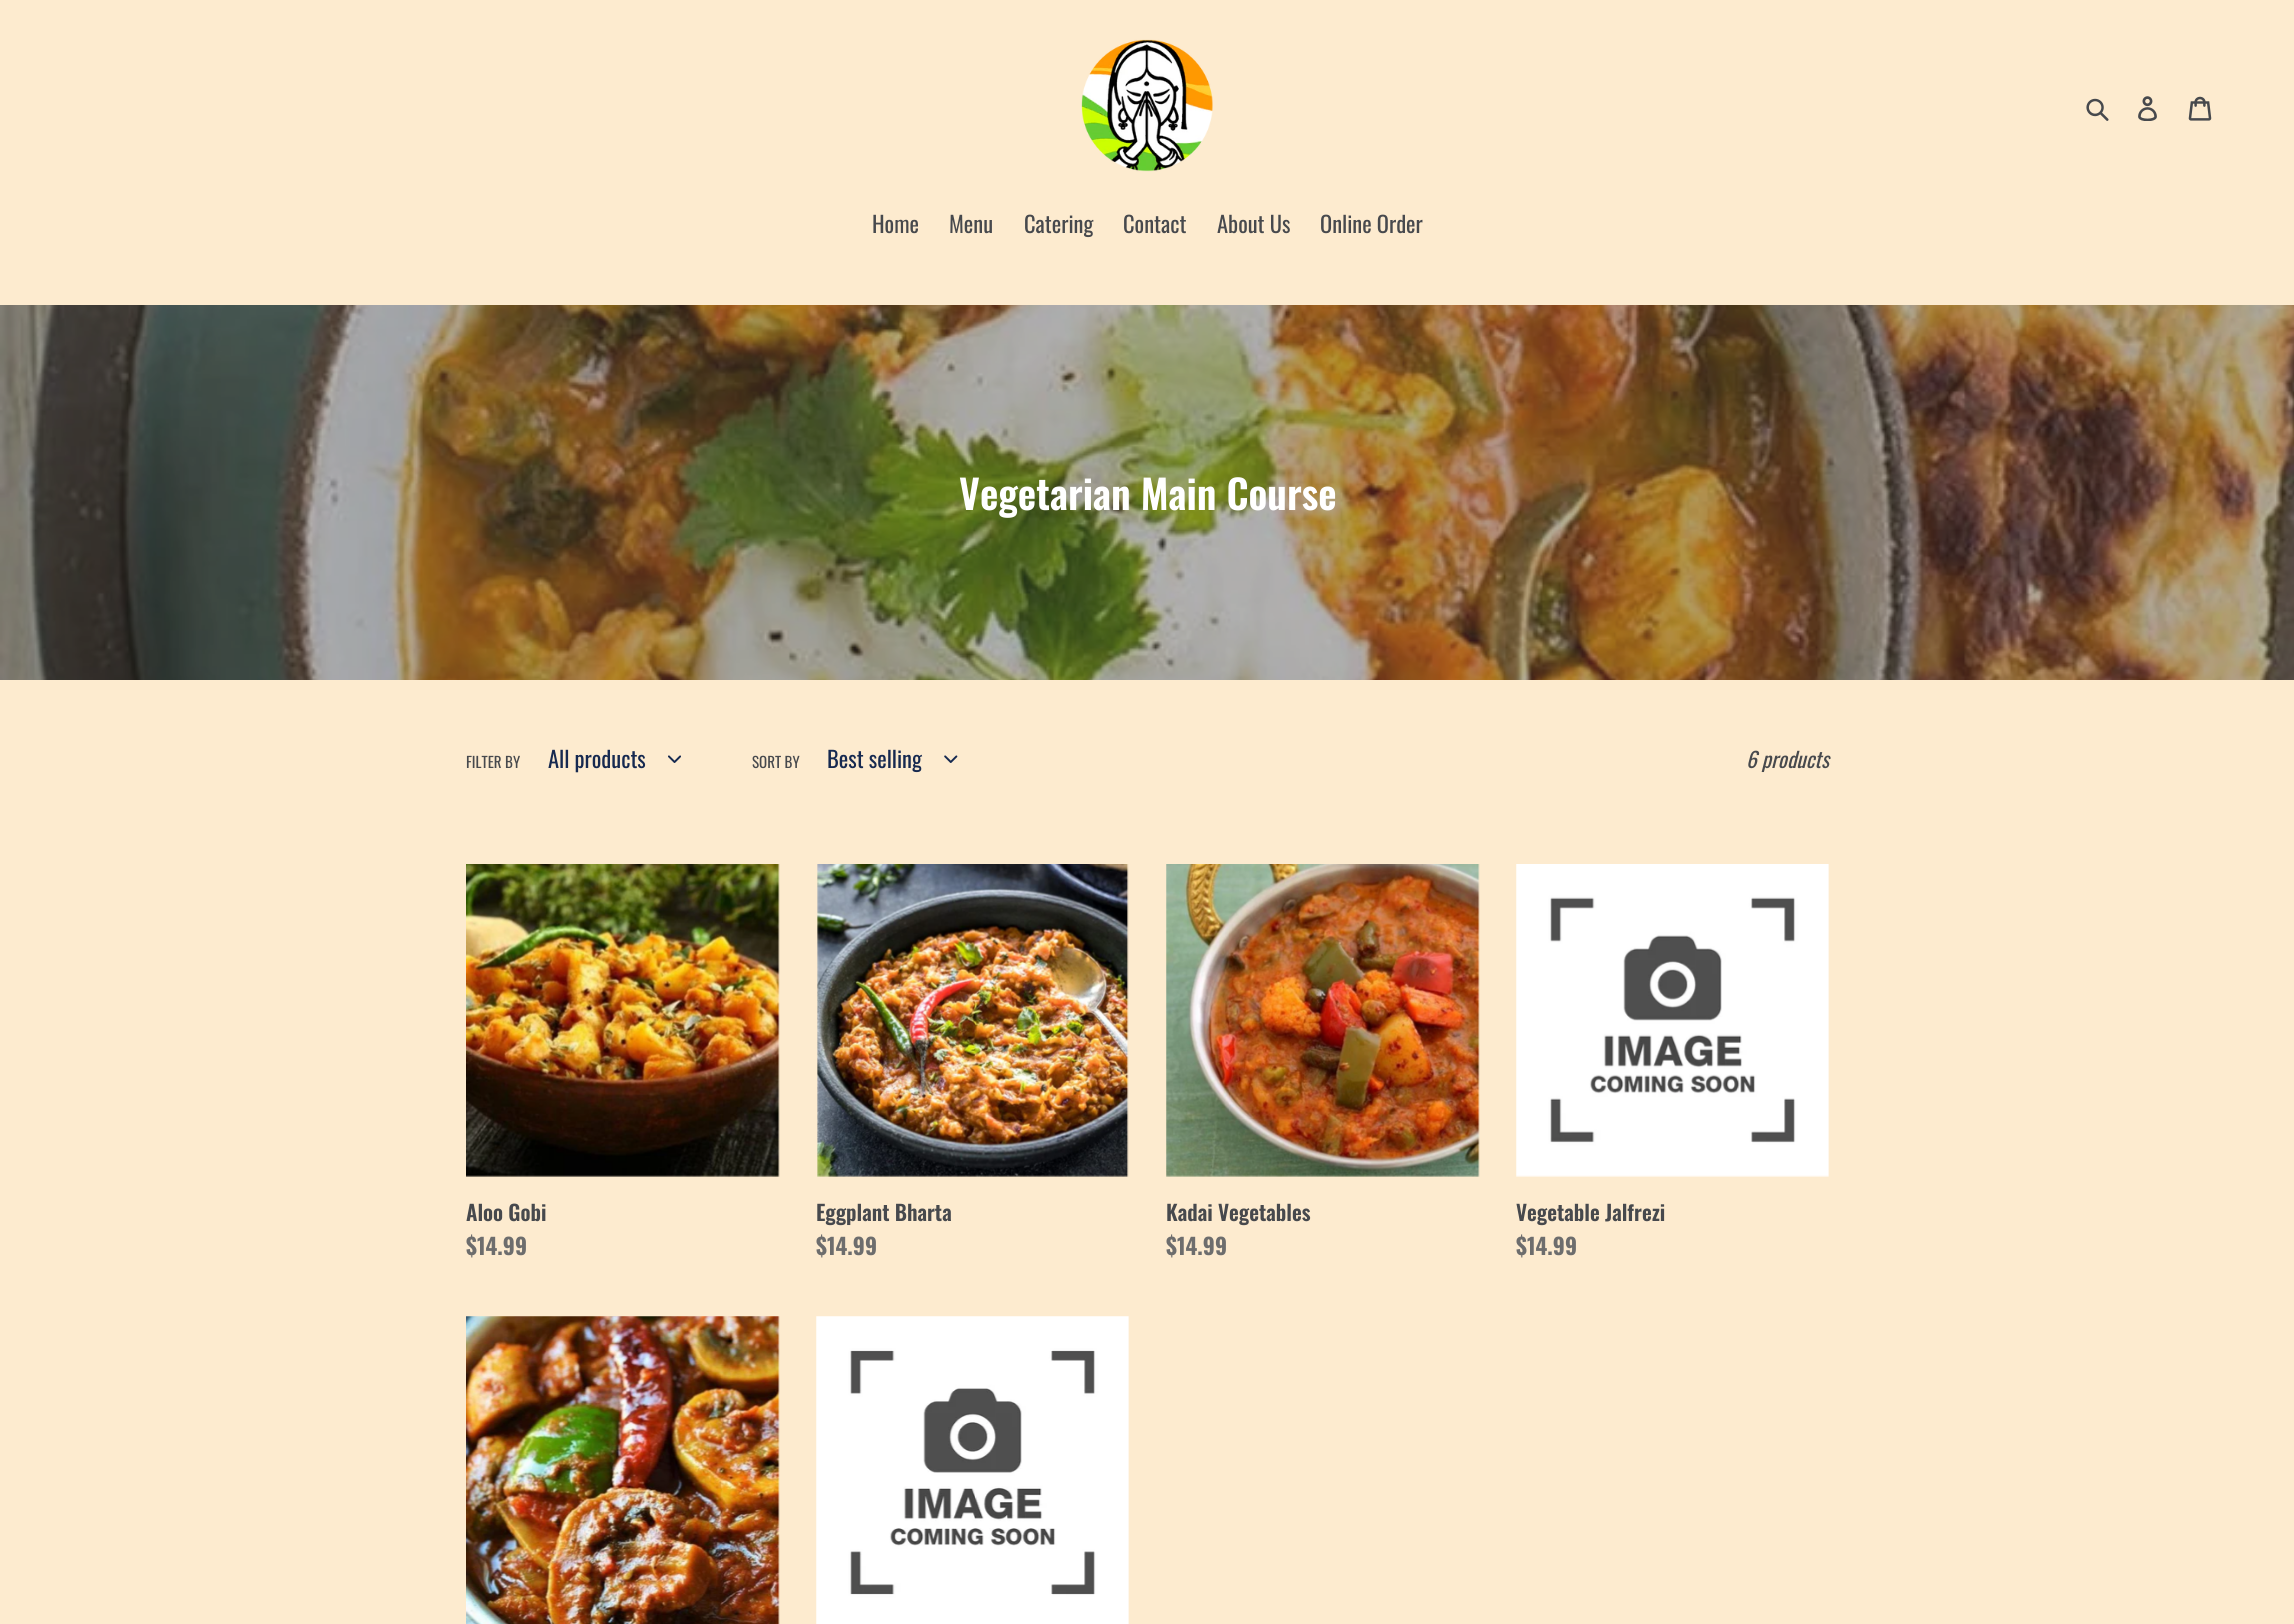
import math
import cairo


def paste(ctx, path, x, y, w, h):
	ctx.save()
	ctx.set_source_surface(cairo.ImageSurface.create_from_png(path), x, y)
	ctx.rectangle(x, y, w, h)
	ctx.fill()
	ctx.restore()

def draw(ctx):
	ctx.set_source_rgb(0.992, 0.918, 0.812)
	ctx.paint()
	paste(ctx, 'media/1.png', 1081, 39, 132, 133)
	paste(ctx, 'media/2.png', 2086, 98, 23, 23)
	paste(ctx, 'media/3.png', 2138, 96, 19, 25)
	paste(ctx, 'media/4.png', 2188, 96, 24, 25)
	ctx.select_font_face('Oswald')
	ctx.set_font_size(22.5)
	ctx.set_source_rgb(0.278, 0.286, 0.302)
	for x, y, s in [
		(872, 233, 'Home'),
		(949, 233, 'Menu'),
		(1024, 233, 'Catering'),
		(1123, 233, 'Contact'),
		(1217, 233, 'About Us'),
		(1320, 233, 'Online Order'),
	]:
		ctx.move_to(x, y)
		ctx.show_text(s)
	paste(ctx, 'media/5.png', 0, 305, 2294, 375)
	ctx.select_font_face('Oswald SemiBold')
	ctx.set_font_size(40)
	ctx.set_source_rgb(1, 1, 1)
	ctx.move_to(959, 510)
	ctx.show_text('Vegetarian Main Course')
	ctx.select_font_face('Oswald')
	ctx.set_font_size(15)
	ctx.set_source_rgb(0.278, 0.286, 0.302)
	ctx.move_to(466, 768)
	ctx.show_text('FILTER BY')
	ctx.set_font_size(22.5)
	ctx.set_source_rgb(0.086, 0.161, 0.314)
	ctx.move_to(548, 768)
	ctx.show_text('All products')
	paste(ctx, 'media/6.png', 668, 755, 13, 8)
	ctx.set_font_size(15)
	ctx.set_source_rgb(0.278, 0.286, 0.302)
	ctx.move_to(752, 768)
	ctx.show_text('SORT BY')
	ctx.set_font_size(22.5)
	ctx.set_source_rgb(0.086, 0.161, 0.314)
	ctx.move_to(827, 768)
	ctx.show_text('Best selling')
	paste(ctx, 'media/7.png', 944, 755, 14, 8)
	ctx.select_font_face('Oswald', cairo.FONT_SLANT_ITALIC)
	ctx.set_font_size(21.25)
	ctx.set_source_rgb(0.278, 0.286, 0.302)
	ctx.move_to(1746, 768)
	ctx.show_text('6 products')
	paste(ctx, 'media/8.png', 466, 864, 314, 313)
	ctx.select_font_face('Oswald SemiBold')
	ctx.move_to(466, 1221)
	ctx.show_text('Aloo Gobi')
	ctx.select_font_face('Oswald', cairo.FONT_SLANT_NORMAL, cairo.FONT_WEIGHT_BOLD)
	ctx.set_font_size(22.5)
	ctx.set_source_rgb(0.427, 0.427, 0.427)
	ctx.move_to(466, 1255)
	ctx.show_text('$14.99')
	paste(ctx, 'media/9.png', 817, 864, 312, 313)
	ctx.select_font_face('Oswald SemiBold')
	ctx.set_font_size(21.25)
	ctx.set_source_rgb(0.278, 0.286, 0.302)
	ctx.move_to(816, 1221)
	ctx.show_text('Eggplant Bharta')
	ctx.select_font_face('Oswald', cairo.FONT_SLANT_NORMAL, cairo.FONT_WEIGHT_BOLD)
	ctx.set_font_size(22.5)
	ctx.set_source_rgb(0.427, 0.427, 0.427)
	ctx.move_to(816, 1255)
	ctx.show_text('$14.99')
	paste(ctx, 'media/10.png', 1166, 864, 314, 313)
	ctx.select_font_face('Oswald SemiBold')
	ctx.set_font_size(21.25)
	ctx.set_source_rgb(0.278, 0.286, 0.302)
	ctx.move_to(1166, 1221)
	ctx.show_text('Kadai Vegetables')
	ctx.select_font_face('Oswald', cairo.FONT_SLANT_NORMAL, cairo.FONT_WEIGHT_BOLD)
	ctx.set_font_size(22.5)
	ctx.set_source_rgb(0.427, 0.427, 0.427)
	ctx.move_to(1166, 1255)
	ctx.show_text('$14.99')
	paste(ctx, 'media/11.png', 1516, 864, 313, 313)
	ctx.select_font_face('Oswald SemiBold')
	ctx.set_font_size(21.25)
	ctx.set_source_rgb(0.278, 0.286, 0.302)
	ctx.move_to(1516, 1221)
	ctx.show_text('Vegetable Jalfrezi')
	ctx.select_font_face('Oswald', cairo.FONT_SLANT_NORMAL, cairo.FONT_WEIGHT_BOLD)
	ctx.set_font_size(22.5)
	ctx.set_source_rgb(0.427, 0.427, 0.427)
	ctx.move_to(1516, 1255)
	ctx.show_text('$14.99')
	paste(ctx, 'media/12.png', 466, 1316, 314, 308)
	paste(ctx, 'media/13.png', 816, 1316, 313, 308)


surface = cairo.ImageSurface(cairo.FORMAT_RGB24, 2294, 1624)
ctx = cairo.Context(surface)
options = cairo.FontOptions()
options.set_hint_metrics(cairo.HINT_METRICS_OFF)
options.set_hint_style(cairo.HINT_STYLE_NONE)
ctx.set_font_options(options)
ctx.set_miter_limit(4)
draw(ctx)
surface.write_to_png('image.png')
